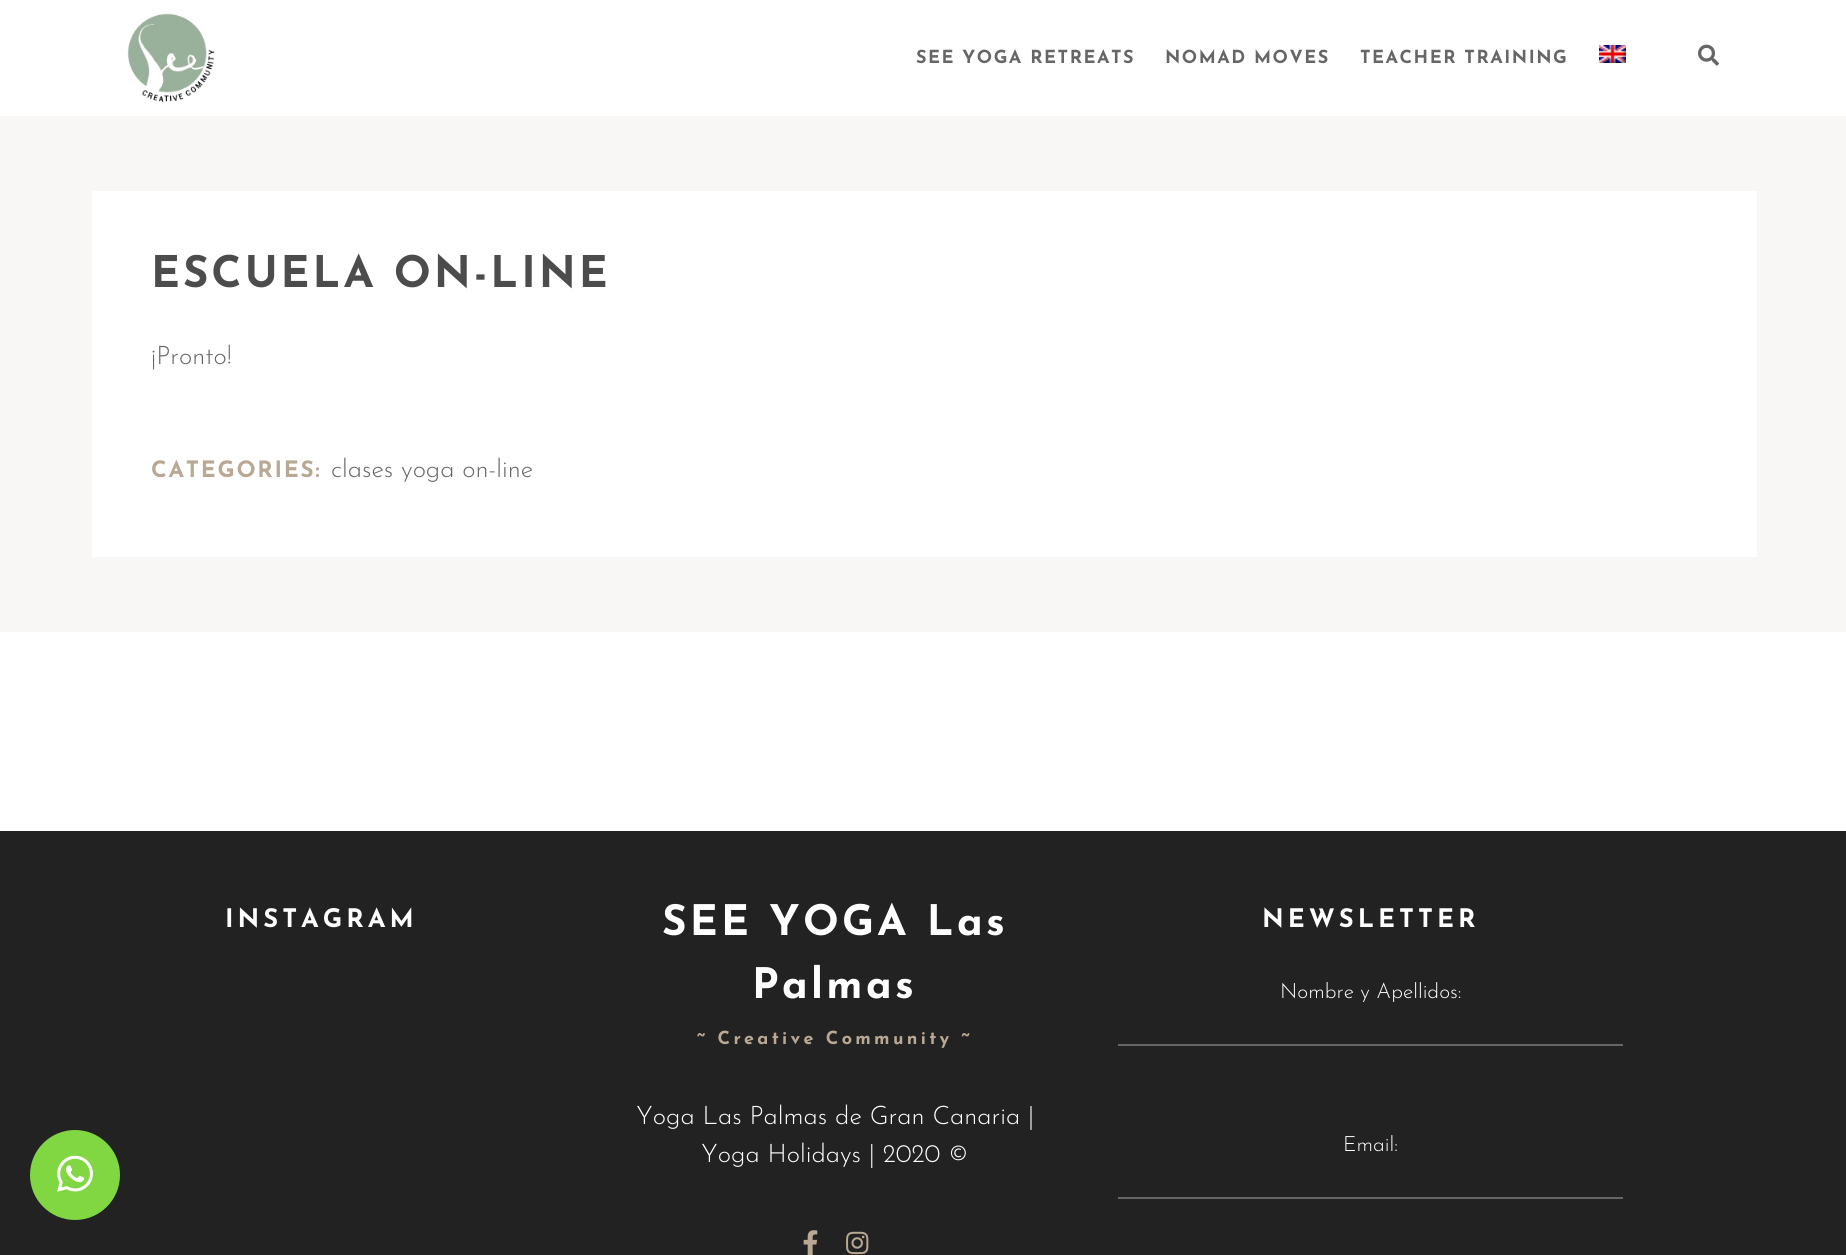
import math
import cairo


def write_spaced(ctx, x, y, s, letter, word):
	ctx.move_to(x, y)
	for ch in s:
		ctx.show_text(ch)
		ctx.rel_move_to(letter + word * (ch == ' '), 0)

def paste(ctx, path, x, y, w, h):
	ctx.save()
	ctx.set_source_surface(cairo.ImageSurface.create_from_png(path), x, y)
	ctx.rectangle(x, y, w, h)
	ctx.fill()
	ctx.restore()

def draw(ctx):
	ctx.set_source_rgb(1, 1, 1)
	ctx.paint()
	paste(ctx, 'media/1.png', 127, 13, 88, 89)
	ctx.select_font_face('Josefin Sans', cairo.FONT_SLANT_NORMAL, cairo.FONT_WEIGHT_BOLD)
	ctx.set_font_size(18)
	ctx.set_source_rgb(0.4, 0.4, 0.4)
	for x, y, s in [
		(916, 63, 'SEE YOGA RETREATS'),
		(1165, 63, 'NOMAD MOVES'),
		(1360, 63, 'TEACHER TRAINING'),
	]:
		write_spaced(ctx, x, y, s, 1.5, 0)
	paste(ctx, 'media/2.png', 1599, 45, 27, 18)
	paste(ctx, 'media/3.png', 1698, 44, 21, 22)
	ctx.set_source_rgb(0.973, 0.965, 0.961)
	ctx.rectangle(0, 116, 1846, 516)
	ctx.fill()
	ctx.set_source_rgb(1, 1, 1)
	ctx.rectangle(92, 191, 1665, 366)
	ctx.fill()
	ctx.set_font_size(43.5)
	ctx.set_source_rgb(0.298, 0.298, 0.298)
	write_spaced(ctx, 151, 287, 'ESCUELA ON-LINE', 3, 0)
	ctx.select_font_face('Josefin Sans Light')
	ctx.set_font_size(25.5)
	ctx.set_source_rgb(0.4, 0.4, 0.4)
	ctx.move_to(151, 364)
	ctx.show_text('¡Pronto!')
	ctx.select_font_face('Josefin Sans', cairo.FONT_SLANT_NORMAL, cairo.FONT_WEIGHT_BOLD)
	ctx.set_font_size(22.5)
	ctx.set_source_rgb(0.725, 0.659, 0.576)
	write_spaced(ctx, 151, 477, 'CATEGORIES:', 1.75, 0)
	ctx.select_font_face('Josefin Sans Light')
	ctx.set_font_size(25.5)
	ctx.set_source_rgb(0.4, 0.4, 0.4)
	ctx.move_to(331, 477)
	ctx.show_text('clases yoga on-line')
	ctx.set_source_rgb(0.133, 0.133, 0.133)
	ctx.rectangle(0, 831, 1846, 424)
	ctx.fill()
	ctx.set_source_rgb(0.506, 0.843, 0.259)
	ctx.arc(75, 1175, 45, 0, 2 * math.pi)
	ctx.fill()
	paste(ctx, 'media/4.png', 57, 1155, 36, 37)
	ctx.select_font_face('Josefin Sans', cairo.FONT_SLANT_NORMAL, cairo.FONT_WEIGHT_BOLD)
	ctx.set_source_rgb(1, 1, 1)
	write_spaced(ctx, 225, 927, 'INSTAGRAM', 4, 0)
	ctx.set_font_size(42)
	write_spaced(ctx, 662, 935, 'SEE YOGA Las', 3.3, 0)
	write_spaced(ctx, 752, 998, 'Palmas', 3.3, 0)
	ctx.set_font_size(18)
	ctx.set_source_rgb(0.725, 0.659, 0.576)
	write_spaced(ctx, 697, 1044, '~ Creative Community ~', 3.3, 0)
	ctx.select_font_face('Josefin Sans Light')
	ctx.set_font_size(25.5)
	ctx.set_source_rgb(1, 1, 1)
	ctx.move_to(636, 1124)
	ctx.show_text('Yoga Las Palmas de Gran Canaria |')
	ctx.move_to(701, 1162)
	ctx.show_text('Yoga Holidays | 2020 ©')
	paste(ctx, 'media/5.png', 803, 1230, 15, 25)
	paste(ctx, 'media/6.png', 846, 1231, 23, 24)
	ctx.select_font_face('Josefin Sans', cairo.FONT_SLANT_NORMAL, cairo.FONT_WEIGHT_BOLD)
	write_spaced(ctx, 1262, 927, 'NEWSLETTER', 4, 0)
	ctx.select_font_face('Josefin Sans Light')
	ctx.set_font_size(21)
	ctx.move_to(1280, 998)
	ctx.show_text('Nombre y Apellidos:')
	ctx.set_source_rgb(0.4, 0.4, 0.4)
	ctx.rectangle(1118, 1044, 505, 2)
	ctx.fill()
	ctx.set_source_rgb(1, 1, 1)
	ctx.move_to(1343, 1151)
	ctx.show_text('Email:')
	ctx.set_source_rgb(0.4, 0.4, 0.4)
	ctx.rectangle(1118, 1197, 505, 2)
	ctx.fill()


surface = cairo.ImageSurface(cairo.FORMAT_RGB24, 1846, 1255)
ctx = cairo.Context(surface)
options = cairo.FontOptions()
options.set_hint_metrics(cairo.HINT_METRICS_OFF)
options.set_hint_style(cairo.HINT_STYLE_NONE)
ctx.set_font_options(options)
ctx.set_miter_limit(4)
draw(ctx)
surface.write_to_png('image.png')
